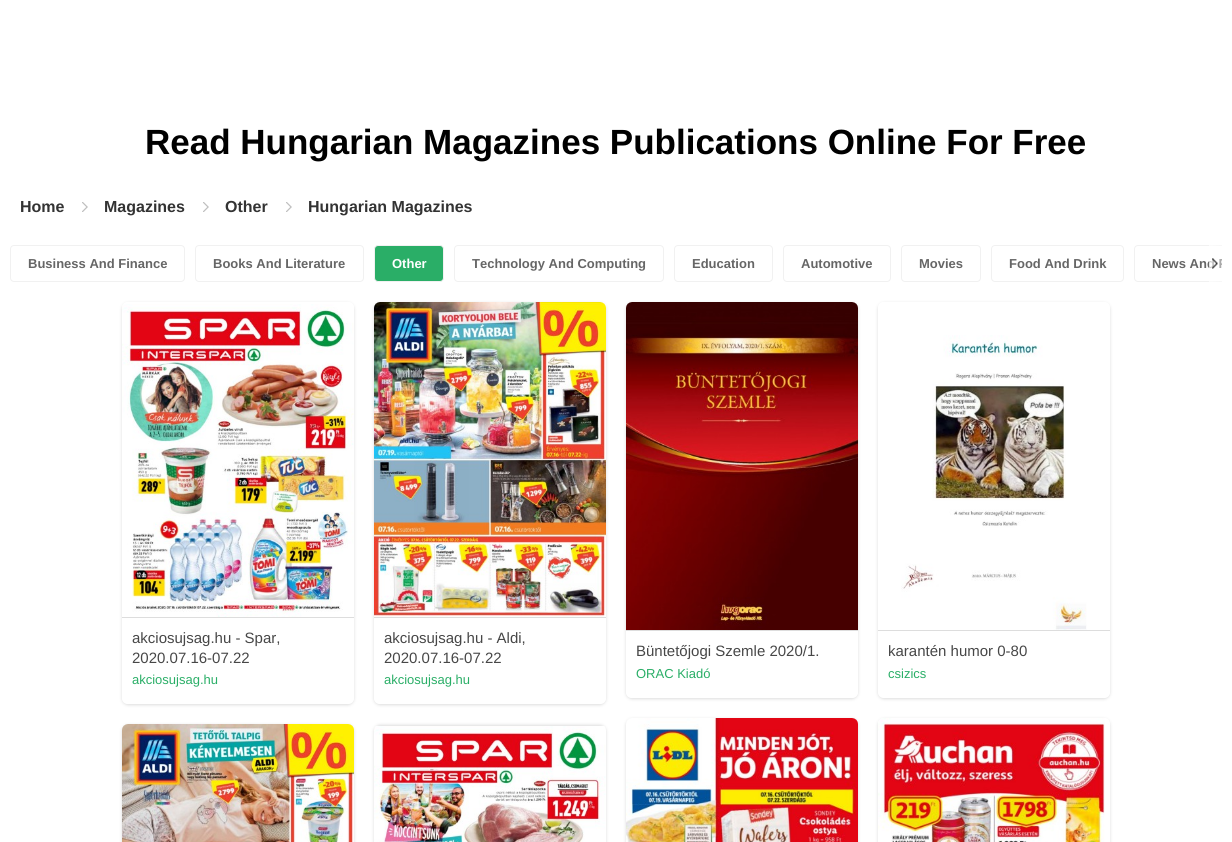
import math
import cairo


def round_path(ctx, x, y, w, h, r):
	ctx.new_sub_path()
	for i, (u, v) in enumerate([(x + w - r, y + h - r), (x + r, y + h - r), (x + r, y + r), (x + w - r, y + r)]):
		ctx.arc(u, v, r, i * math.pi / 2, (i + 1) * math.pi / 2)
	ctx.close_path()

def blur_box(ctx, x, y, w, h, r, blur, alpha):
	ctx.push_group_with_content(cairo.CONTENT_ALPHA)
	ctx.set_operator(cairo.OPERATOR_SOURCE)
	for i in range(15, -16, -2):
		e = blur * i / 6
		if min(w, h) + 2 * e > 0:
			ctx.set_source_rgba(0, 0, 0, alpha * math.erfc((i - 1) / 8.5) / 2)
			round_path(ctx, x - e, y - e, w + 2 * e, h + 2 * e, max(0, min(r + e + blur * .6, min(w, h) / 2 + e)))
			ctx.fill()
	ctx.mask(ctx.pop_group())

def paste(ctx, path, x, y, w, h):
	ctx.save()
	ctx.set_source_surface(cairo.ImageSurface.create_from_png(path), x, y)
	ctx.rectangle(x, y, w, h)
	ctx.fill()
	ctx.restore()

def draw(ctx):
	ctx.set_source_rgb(1, 1, 1)
	ctx.paint()
	ctx.select_font_face('Liberation Sans', cairo.FONT_SLANT_NORMAL, cairo.FONT_WEIGHT_BOLD)
	ctx.set_font_size(35)
	ctx.set_source_rgb(0, 0, 0)
	ctx.move_to(145, 154)
	ctx.show_text('Read Hungarian Magazines Publications Online For Free')
	ctx.set_font_size(16)
	ctx.set_source_rgb(0.2, 0.2, 0.2)
	ctx.move_to(20, 212)
	ctx.show_text('Home')
	paste(ctx, 'media/1.png', 82, 202, 6, 10)
	ctx.move_to(104, 212)
	ctx.show_text('Magazines')
	paste(ctx, 'media/1.png', 203, 202, 6, 10)
	ctx.move_to(225, 212)
	ctx.show_text('Other')
	paste(ctx, 'media/1.png', 286, 202, 6, 10)
	ctx.move_to(308, 212)
	ctx.show_text('Hungarian Magazines')
	round_path(ctx, 10.5, 245.5, 174, 36, 3.5)
	ctx.set_source_rgb(0.945, 0.945, 0.945)
	ctx.set_line_width(1)
	ctx.stroke()
	ctx.set_font_size(13)
	ctx.set_source_rgb(0.4, 0.4, 0.4)
	ctx.move_to(28, 268)
	ctx.show_text('Business And Finance')
	round_path(ctx, 195.5, 245.5, 168, 36, 3.5)
	ctx.set_source_rgb(0.945, 0.945, 0.945)
	ctx.stroke()
	ctx.set_source_rgb(0.4, 0.4, 0.4)
	ctx.move_to(213, 268)
	ctx.show_text('Books And Literature')
	ctx.set_source_rgb(0.165, 0.682, 0.404)
	round_path(ctx, 374.5, 245.5, 69, 36, 3.5)
	ctx.fill_preserve()
	ctx.set_source_rgb(0.945, 0.945, 0.945)
	ctx.stroke()
	ctx.set_source_rgb(1, 1, 1)
	ctx.move_to(392, 268)
	ctx.show_text('Other')
	round_path(ctx, 454.5, 245.5, 209, 36, 3.5)
	ctx.set_source_rgb(0.945, 0.945, 0.945)
	ctx.stroke()
	ctx.set_source_rgb(0.4, 0.4, 0.4)
	ctx.move_to(472, 268)
	ctx.show_text('Technology And Computing')
	round_path(ctx, 674.5, 245.5, 98, 36, 3.5)
	ctx.set_source_rgb(0.945, 0.945, 0.945)
	ctx.stroke()
	ctx.set_source_rgb(0.4, 0.4, 0.4)
	ctx.move_to(692, 268)
	ctx.show_text('Education')
	round_path(ctx, 783.5, 245.5, 107, 36, 3.5)
	ctx.set_source_rgb(0.945, 0.945, 0.945)
	ctx.stroke()
	ctx.set_source_rgb(0.4, 0.4, 0.4)
	ctx.move_to(801, 268)
	ctx.show_text('Automotive')
	round_path(ctx, 901.5, 245.5, 79, 36, 3.5)
	ctx.set_source_rgb(0.945, 0.945, 0.945)
	ctx.stroke()
	ctx.set_source_rgb(0.4, 0.4, 0.4)
	ctx.move_to(919, 268)
	ctx.show_text('Movies')
	round_path(ctx, 991.5, 245.5, 132, 36, 3.5)
	ctx.set_source_rgb(0.945, 0.945, 0.945)
	ctx.stroke()
	ctx.set_source_rgb(0.4, 0.4, 0.4)
	ctx.move_to(1009, 268)
	ctx.show_text('Food And Drink')
	ctx.save()
	ctx.rectangle(10, 245, 1212, 37)
	ctx.clip()
	round_path(ctx, 1134.5, 245.5, 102, 36, 3.5)
	ctx.set_source_rgb(0.945, 0.945, 0.945)
	ctx.stroke()
	ctx.set_source_rgb(0.4, 0.4, 0.4)
	ctx.move_to(1152, 268)
	ctx.show_text('News And P')
	ctx.restore()
	gradient = cairo.LinearGradient(1209, 264, 1222, 264)
	gradient.add_color_stop_rgba(0, 1, 1, 1, 0.7)
	gradient.add_color_stop_rgba(1, 1, 1, 1, 0.4)
	ctx.set_source(gradient)
	ctx.rectangle(1209, 245, 13, 37)
	ctx.fill()
	paste(ctx, 'media/2.png', 1212, 258, 6, 11)
	ctx.save()
	ctx.set_fill_rule(cairo.FILL_RULE_EVEN_ODD)
	ctx.new_path()
	ctx.move_to(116, 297)
	ctx.line_to(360, 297)
	ctx.line_to(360, 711)
	ctx.line_to(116, 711)
	ctx.close_path()
	ctx.move_to(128, 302)
	ctx.line_to(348, 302)
	ctx.curve_to(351.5, 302, 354, 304.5, 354, 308)
	ctx.line_to(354, 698)
	ctx.curve_to(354, 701.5, 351.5, 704, 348, 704)
	ctx.line_to(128, 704)
	ctx.curve_to(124.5, 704, 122, 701.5, 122, 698)
	ctx.line_to(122, 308)
	ctx.curve_to(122, 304.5, 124.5, 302, 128, 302)
	ctx.close_path()
	ctx.clip()
	ctx.set_source_rgb(0.867, 0.867, 0.867)
	blur_box(ctx, 122, 303, 232, 402, 6, 1.5, 1)
	ctx.restore()
	paste(ctx, 'media/3.png', 122, 304, 232, 313)
	ctx.set_source_rgb(0.867, 0.867, 0.867)
	ctx.rectangle(122, 617, 232, 1)
	ctx.fill()
	ctx.select_font_face('Liberation Sans')
	ctx.set_font_size(15)
	ctx.set_source_rgb(0.278, 0.278, 0.278)
	ctx.move_to(132, 643)
	ctx.show_text('akciosujsag.hu - Spar,')
	ctx.move_to(132, 663)
	ctx.show_text('2020.07.16-07.22')
	ctx.set_font_size(13)
	ctx.set_source_rgb(0.165, 0.682, 0.404)
	ctx.move_to(132, 684)
	ctx.show_text('akciosujsag.hu')
	ctx.save()
	ctx.set_fill_rule(cairo.FILL_RULE_EVEN_ODD)
	ctx.new_path()
	ctx.move_to(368, 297)
	ctx.line_to(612, 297)
	ctx.line_to(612, 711)
	ctx.line_to(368, 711)
	ctx.close_path()
	ctx.move_to(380, 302)
	ctx.line_to(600, 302)
	ctx.curve_to(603.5, 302, 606, 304.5, 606, 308)
	ctx.line_to(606, 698)
	ctx.curve_to(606, 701.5, 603.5, 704, 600, 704)
	ctx.line_to(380, 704)
	ctx.curve_to(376.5, 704, 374, 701.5, 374, 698)
	ctx.line_to(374, 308)
	ctx.curve_to(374, 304.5, 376.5, 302, 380, 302)
	ctx.close_path()
	ctx.clip()
	ctx.set_source_rgb(0.867, 0.867, 0.867)
	blur_box(ctx, 374, 303, 232, 402, 6, 1.5, 1)
	ctx.restore()
	paste(ctx, 'media/4.png', 374, 302, 232, 315)
	ctx.set_source_rgb(0.867, 0.867, 0.867)
	ctx.rectangle(374, 617, 232, 1)
	ctx.fill()
	ctx.set_font_size(15)
	ctx.set_source_rgb(0.278, 0.278, 0.278)
	ctx.move_to(384, 643)
	ctx.show_text('akciosujsag.hu - Aldi,')
	ctx.move_to(384, 663)
	ctx.show_text('2020.07.16-07.22')
	ctx.set_font_size(13)
	ctx.set_source_rgb(0.165, 0.682, 0.404)
	ctx.move_to(384, 684)
	ctx.show_text('akciosujsag.hu')
	ctx.save()
	ctx.set_fill_rule(cairo.FILL_RULE_EVEN_ODD)
	ctx.new_path()
	ctx.move_to(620, 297)
	ctx.line_to(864, 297)
	ctx.line_to(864, 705)
	ctx.line_to(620, 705)
	ctx.close_path()
	ctx.move_to(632, 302)
	ctx.line_to(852, 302)
	ctx.curve_to(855.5, 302, 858, 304.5, 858, 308)
	ctx.line_to(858, 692)
	ctx.curve_to(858, 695.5, 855.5, 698, 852, 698)
	ctx.line_to(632, 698)
	ctx.curve_to(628.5, 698, 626, 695.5, 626, 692)
	ctx.line_to(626, 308)
	ctx.curve_to(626, 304.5, 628.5, 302, 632, 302)
	ctx.close_path()
	ctx.clip()
	ctx.set_source_rgb(0.867, 0.867, 0.867)
	blur_box(ctx, 626, 303, 232, 396, 6, 1.5, 1)
	ctx.restore()
	paste(ctx, 'media/5.png', 626, 302, 232, 328)
	ctx.set_source_rgb(0.867, 0.867, 0.867)
	ctx.rectangle(626, 630, 232, 1)
	ctx.fill()
	ctx.set_font_size(15)
	ctx.set_source_rgb(0.278, 0.278, 0.278)
	ctx.move_to(636, 656)
	ctx.show_text('Büntetőjogi Szemle 2020/1.')
	ctx.set_font_size(13)
	ctx.set_source_rgb(0.165, 0.682, 0.404)
	ctx.move_to(636, 678)
	ctx.show_text('ORAC Kiadó')
	ctx.save()
	ctx.set_fill_rule(cairo.FILL_RULE_EVEN_ODD)
	ctx.new_path()
	ctx.move_to(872, 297)
	ctx.line_to(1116, 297)
	ctx.line_to(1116, 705)
	ctx.line_to(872, 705)
	ctx.close_path()
	ctx.move_to(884, 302)
	ctx.line_to(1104, 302)
	ctx.curve_to(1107.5, 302, 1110, 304.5, 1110, 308)
	ctx.line_to(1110, 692)
	ctx.curve_to(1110, 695.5, 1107.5, 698, 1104, 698)
	ctx.line_to(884, 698)
	ctx.curve_to(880.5, 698, 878, 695.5, 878, 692)
	ctx.line_to(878, 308)
	ctx.curve_to(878, 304.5, 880.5, 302, 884, 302)
	ctx.close_path()
	ctx.clip()
	ctx.set_source_rgb(0.867, 0.867, 0.867)
	blur_box(ctx, 878, 303, 232, 396, 6, 1.5, 1)
	ctx.restore()
	paste(ctx, 'media/6.png', 901, 335, 186, 295)
	ctx.set_source_rgb(0.867, 0.867, 0.867)
	ctx.rectangle(878, 630, 232, 1)
	ctx.fill()
	ctx.set_font_size(15)
	ctx.set_source_rgb(0.278, 0.278, 0.278)
	ctx.move_to(888, 656)
	ctx.show_text('karantén humor 0-80')
	ctx.set_font_size(13)
	ctx.set_source_rgb(0.165, 0.682, 0.404)
	ctx.move_to(888, 678)
	ctx.show_text('csizics')
	ctx.set_source_rgb(0.867, 0.867, 0.867)
	blur_box(ctx, 122, 725, 232, 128, 6, 1.5, 1)
	paste(ctx, 'media/7.png', 122, 724, 232, 118)
	blur_box(ctx, 374, 725, 232, 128, 6, 1.5, 1)
	paste(ctx, 'media/8.png', 374, 726, 232, 116)
	blur_box(ctx, 626, 719, 232, 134, 6, 1.5, 1)
	paste(ctx, 'media/9.png', 626, 718, 232, 124)
	ctx.save()
	ctx.set_fill_rule(cairo.FILL_RULE_EVEN_ODD)
	ctx.new_path()
	ctx.move_to(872, 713)
	ctx.line_to(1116, 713)
	ctx.line_to(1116, 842)
	ctx.line_to(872, 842)
	ctx.close_path()
	ctx.move_to(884, 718)
	ctx.line_to(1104, 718)
	ctx.curve_to(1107.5, 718, 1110, 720.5, 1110, 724)
	ctx.line_to(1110, 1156)
	ctx.curve_to(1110, 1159.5, 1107.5, 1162, 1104, 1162)
	ctx.line_to(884, 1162)
	ctx.curve_to(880.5, 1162, 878, 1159.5, 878, 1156)
	ctx.line_to(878, 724)
	ctx.curve_to(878, 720.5, 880.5, 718, 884, 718)
	ctx.close_path()
	ctx.clip()
	blur_box(ctx, 878, 719, 232, 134, 6, 1.5, 1)
	ctx.restore()
	paste(ctx, 'media/10.png', 878, 718, 227, 124)


surface = cairo.ImageSurface(cairo.FORMAT_RGB24, 1232, 842)
ctx = cairo.Context(surface)
options = cairo.FontOptions()
options.set_hint_metrics(cairo.HINT_METRICS_OFF)
options.set_hint_style(cairo.HINT_STYLE_NONE)
ctx.set_font_options(options)
ctx.set_miter_limit(4)
draw(ctx)
surface.write_to_png('image.png')
